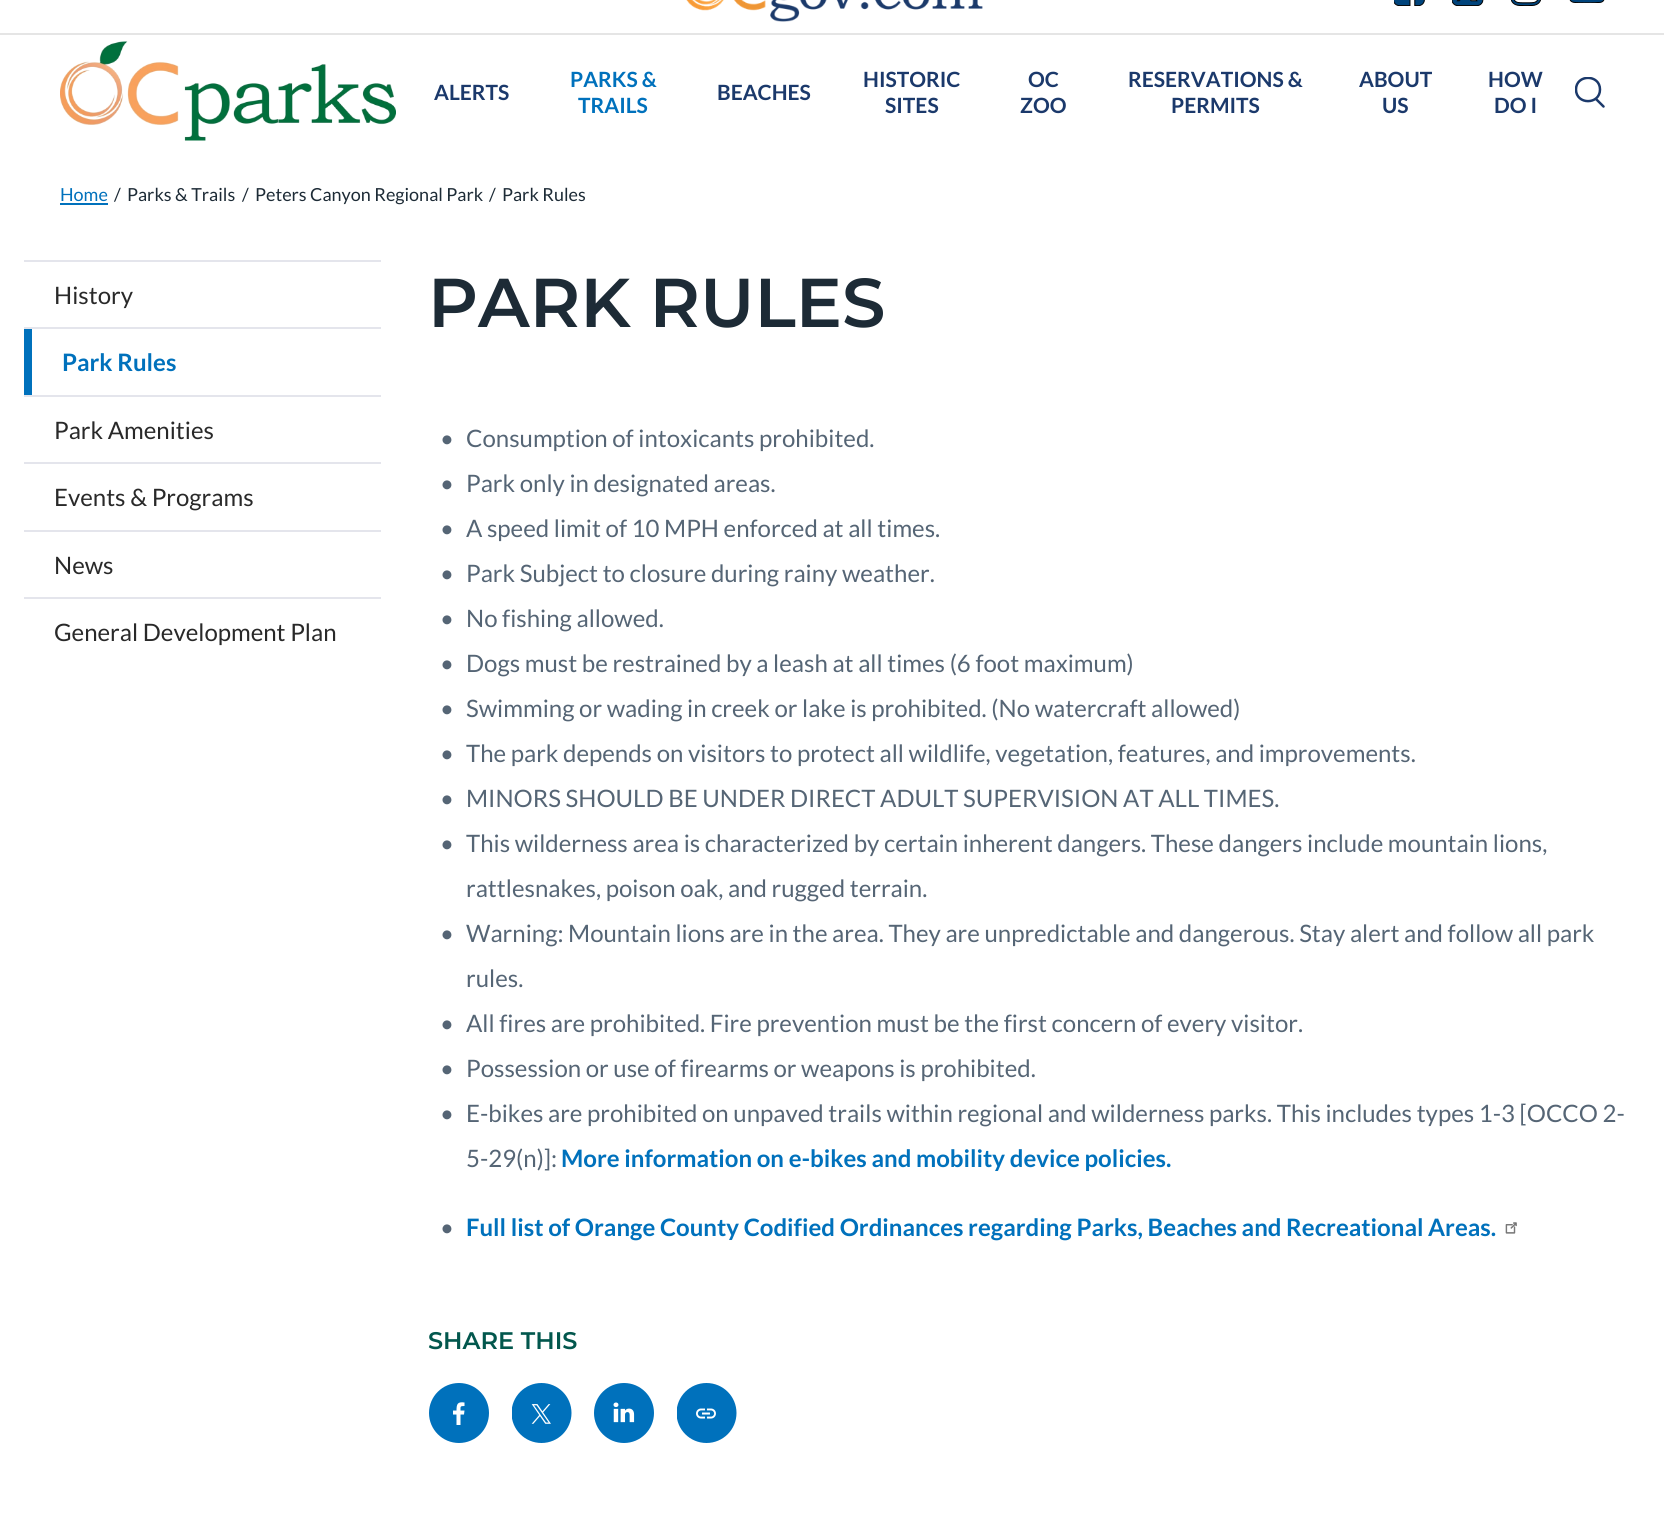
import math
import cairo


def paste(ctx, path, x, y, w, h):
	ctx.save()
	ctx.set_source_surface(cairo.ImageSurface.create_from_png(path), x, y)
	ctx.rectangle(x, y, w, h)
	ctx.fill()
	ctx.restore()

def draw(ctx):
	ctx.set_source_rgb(1, 1, 1)
	ctx.paint()
	ctx.set_source_rgb(0.898, 0.898, 0.898)
	ctx.rectangle(0, 33, 1664, 2)
	ctx.fill()
	paste(ctx, 'media/1.png', 686, 0, 297, 22)
	paste(ctx, 'media/2.png', 1394, 0, 31, 6)
	paste(ctx, 'media/3.png', 1452, 0, 32, 6)
	paste(ctx, 'media/4.png', 1511, 0, 30, 6)
	paste(ctx, 'media/5.png', 1569, 0, 36, 3)
	paste(ctx, 'media/6.png', 60, 41, 336, 100)
	ctx.select_font_face('Lato', cairo.FONT_SLANT_NORMAL, cairo.FONT_WEIGHT_BOLD)
	ctx.set_font_size(21)
	ctx.set_source_rgb(0.106, 0.224, 0.42)
	ctx.move_to(434, 100)
	ctx.show_text('ALERTS')
	ctx.set_source_rgb(0, 0.443, 0.737)
	ctx.move_to(570, 87)
	ctx.show_text('PARKS &')
	ctx.move_to(578, 113)
	ctx.show_text('TRAILS')
	ctx.set_source_rgb(0.106, 0.224, 0.42)
	for x, y, s in [
		(717, 100, 'BEACHES'),
		(863, 87, 'HISTORIC'),
		(885, 113, 'SITES'),
		(1028, 87, 'OC'),
		(1020, 113, 'ZOO'),
		(1128, 87, 'RESERVATIONS &'),
		(1171, 113, 'PERMITS'),
		(1359, 87, 'ABOUT'),
		(1382, 113, 'US'),
		(1488, 87, 'HOW'),
		(1494, 113, 'DO I'),
	]:
		ctx.move_to(x, y)
		ctx.show_text(s)
	ctx.save()
	ctx.rectangle(1575, 77, 30, 31)
	ctx.clip()
	ctx.new_path()
	ctx.move_to(1576, 89.5)
	ctx.curve_to(1576, 74, 1600, 74, 1600, 89.5)
	ctx.curve_to(1600, 105, 1576, 105, 1576, 89.5)
	ctx.close_path()
	ctx.move_to(1596, 99)
	ctx.line_to(1603.5, 106.5)
	ctx.set_line_width(2.5)
	ctx.set_line_cap(cairo.LINE_CAP_ROUND)
	ctx.set_line_join(cairo.LINE_JOIN_ROUND)
	ctx.stroke()
	ctx.restore()
	ctx.select_font_face('Lato')
	ctx.set_font_size(18)
	ctx.set_source_rgb(0, 0.443, 0.737)
	ctx.move_to(60, 201)
	ctx.show_text('Home')
	ctx.rectangle(60, 203, 48, 2)
	ctx.fill()
	ctx.set_source_rgb(0.114, 0.169, 0.212)
	for x, y, s in [
		(114, 201, '/'),
		(127, 201, 'Parks & Trails'),
		(242, 201, '/'),
		(255, 201, 'Peters Canyon Regional Park'),
		(489, 201, '/'),
		(502, 201, 'Park Rules'),
	]:
		ctx.move_to(x, y)
		ctx.show_text(s)
	ctx.set_source_rgb(0.894, 0.898, 0.925)
	ctx.rectangle(24, 260, 357, 2)
	ctx.fill()
	ctx.set_font_size(24)
	ctx.set_source_rgb(0.161, 0.161, 0.161)
	ctx.move_to(54, 304)
	ctx.show_text('History')
	ctx.set_source_rgb(0.894, 0.898, 0.925)
	ctx.rectangle(24, 327, 357, 2)
	ctx.fill()
	ctx.set_source_rgb(0, 0.443, 0.737)
	ctx.rectangle(24, 329, 8, 66)
	ctx.fill()
	ctx.select_font_face('Lato', cairo.FONT_SLANT_NORMAL, cairo.FONT_WEIGHT_BOLD)
	ctx.move_to(62, 371)
	ctx.show_text('Park Rules')
	ctx.set_source_rgb(0.894, 0.898, 0.925)
	ctx.rectangle(24, 395, 357, 2)
	ctx.fill()
	ctx.select_font_face('Lato')
	ctx.set_source_rgb(0.161, 0.161, 0.161)
	ctx.move_to(54, 439)
	ctx.show_text('Park Amenities')
	ctx.set_source_rgb(0.894, 0.898, 0.925)
	ctx.rectangle(24, 462, 357, 2)
	ctx.fill()
	ctx.set_source_rgb(0.161, 0.161, 0.161)
	ctx.move_to(54, 506)
	ctx.show_text('Events & Programs')
	ctx.set_source_rgb(0.894, 0.898, 0.925)
	ctx.rectangle(24, 530, 357, 2)
	ctx.fill()
	ctx.set_source_rgb(0.161, 0.161, 0.161)
	ctx.move_to(54, 574)
	ctx.show_text('News')
	ctx.set_source_rgb(0.894, 0.898, 0.925)
	ctx.rectangle(24, 597, 357, 2)
	ctx.fill()
	ctx.set_source_rgb(0.161, 0.161, 0.161)
	ctx.move_to(54, 641)
	ctx.show_text('General Development Plan')
	ctx.select_font_face('Montserrat SemiBold')
	ctx.set_font_size(69)
	ctx.set_source_rgb(0.114, 0.169, 0.212)
	ctx.move_to(428, 327)
	ctx.show_text('PARK RULES')
	ctx.select_font_face('Lato')
	ctx.set_font_size(24)
	ctx.set_source_rgb(0.333, 0.396, 0.459)
	for x, y, s in [
		(440, 447, '•'),
		(466, 447, 'Consumption of intoxicants prohibited.'),
		(440, 492, '•'),
		(466, 492, 'Park only in designated areas.'),
		(440, 537, '•'),
		(466, 537, 'A speed limit of 10 MPH enforced at all times.'),
		(440, 582, '•'),
		(466, 582, 'Park Subject to closure during rainy weather.'),
		(440, 627, '•'),
		(466, 627, 'No fishing allowed.'),
		(440, 672, '•'),
		(466, 672, 'Dogs must be restrained by a leash at all times (6 foot maximum)'),
		(440, 717, '•'),
		(466, 717, 'Swimming or wading in creek or lake is prohibited. (No watercraft allowed)'),
		(440, 762, '•'),
		(466, 762, 'The park depends on visitors to protect all wildlife, vegetation, features, and improvements.'),
		(440, 807, '•'),
		(466, 807, 'MINORS SHOULD BE UNDER DIRECT ADULT SUPERVISION AT ALL TIMES.'),
		(440, 852, '•'),
		(466, 852, 'This wilderness area is characterized by certain inherent dangers. These dangers include mountain lions,'),
		(466, 897, 'rattlesnakes, poison oak, and rugged terrain.'),
		(440, 942, '•'),
		(466, 942, 'Warning: Mountain lions are in the area. They are unpredictable and dangerous. Stay alert and follow all park'),
		(466, 987, 'rules.'),
		(440, 1032, '•'),
		(466, 1032, 'All fires are prohibited. Fire prevention must be the first concern of every visitor.'),
		(440, 1077, '•'),
		(466, 1077, 'Possession or use of firearms or weapons is prohibited.'),
		(440, 1122, '•'),
		(466, 1122, 'E-bikes are prohibited on unpaved trails within regional and wilderness parks. This includes types 1-3 [OCCO 2-'),
		(466, 1167, '5-29(n)]:'),
	]:
		ctx.move_to(x, y)
		ctx.show_text(s)
	ctx.select_font_face('Lato', cairo.FONT_SLANT_NORMAL, cairo.FONT_WEIGHT_BOLD)
	ctx.set_source_rgb(0, 0.443, 0.737)
	ctx.move_to(561, 1167)
	ctx.show_text('More information on e-bikes and mobility device policies.')
	ctx.select_font_face('Lato')
	ctx.set_source_rgb(0.333, 0.396, 0.459)
	ctx.move_to(440, 1236)
	ctx.show_text('•')
	ctx.select_font_face('Lato', cairo.FONT_SLANT_NORMAL, cairo.FONT_WEIGHT_BOLD)
	ctx.set_source_rgb(0, 0.443, 0.737)
	ctx.move_to(466, 1236)
	ctx.show_text('Full list of Orange County Codified Ordinances regarding Parks, Beaches and Recreational Areas.')
	paste(ctx, 'media/7.png', 1505, 1222, 12, 12)
	ctx.select_font_face('Montserrat SemiBold')
	ctx.set_source_rgb(0.008, 0.341, 0.302)
	ctx.move_to(428, 1349)
	ctx.show_text('SHARE THIS')
	ctx.set_source_rgb(0, 0.443, 0.737)
	ctx.new_path()
	ctx.arc(459, 1413, 30, 0, 2 * math.pi)
	ctx.fill()
	ctx.set_source_rgb(1, 1, 1)
	ctx.new_path()
	ctx.move_to(460.5, 1425)
	ctx.line_to(460.5, 1414.5)
	ctx.line_to(464, 1414.5)
	ctx.line_to(464.5, 1410.5)
	ctx.line_to(460.5, 1410.5)
	ctx.curve_to(460.5, 1406.5, 460, 1406, 464.5, 1406)
	ctx.line_to(464.5, 1402.5)
	ctx.curve_to(457.5, 1401.5, 456.5, 1404, 456.5, 1410.5)
	ctx.line_to(453, 1410.5)
	ctx.line_to(453, 1414.5)
	ctx.line_to(456.5, 1414.5)
	ctx.line_to(456.5, 1425)
	ctx.close_path()
	ctx.fill()
	paste(ctx, 'media/8.png', 512, 1383, 60, 60)
	paste(ctx, 'media/9.png', 594, 1383, 60, 60)
	paste(ctx, 'media/10.png', 677, 1383, 60, 60)


surface = cairo.ImageSurface(cairo.FORMAT_RGB24, 1664, 1517)
ctx = cairo.Context(surface)
options = cairo.FontOptions()
options.set_hint_metrics(cairo.HINT_METRICS_OFF)
options.set_hint_style(cairo.HINT_STYLE_NONE)
ctx.set_font_options(options)
ctx.set_miter_limit(4)
draw(ctx)
surface.write_to_png('image.png')
